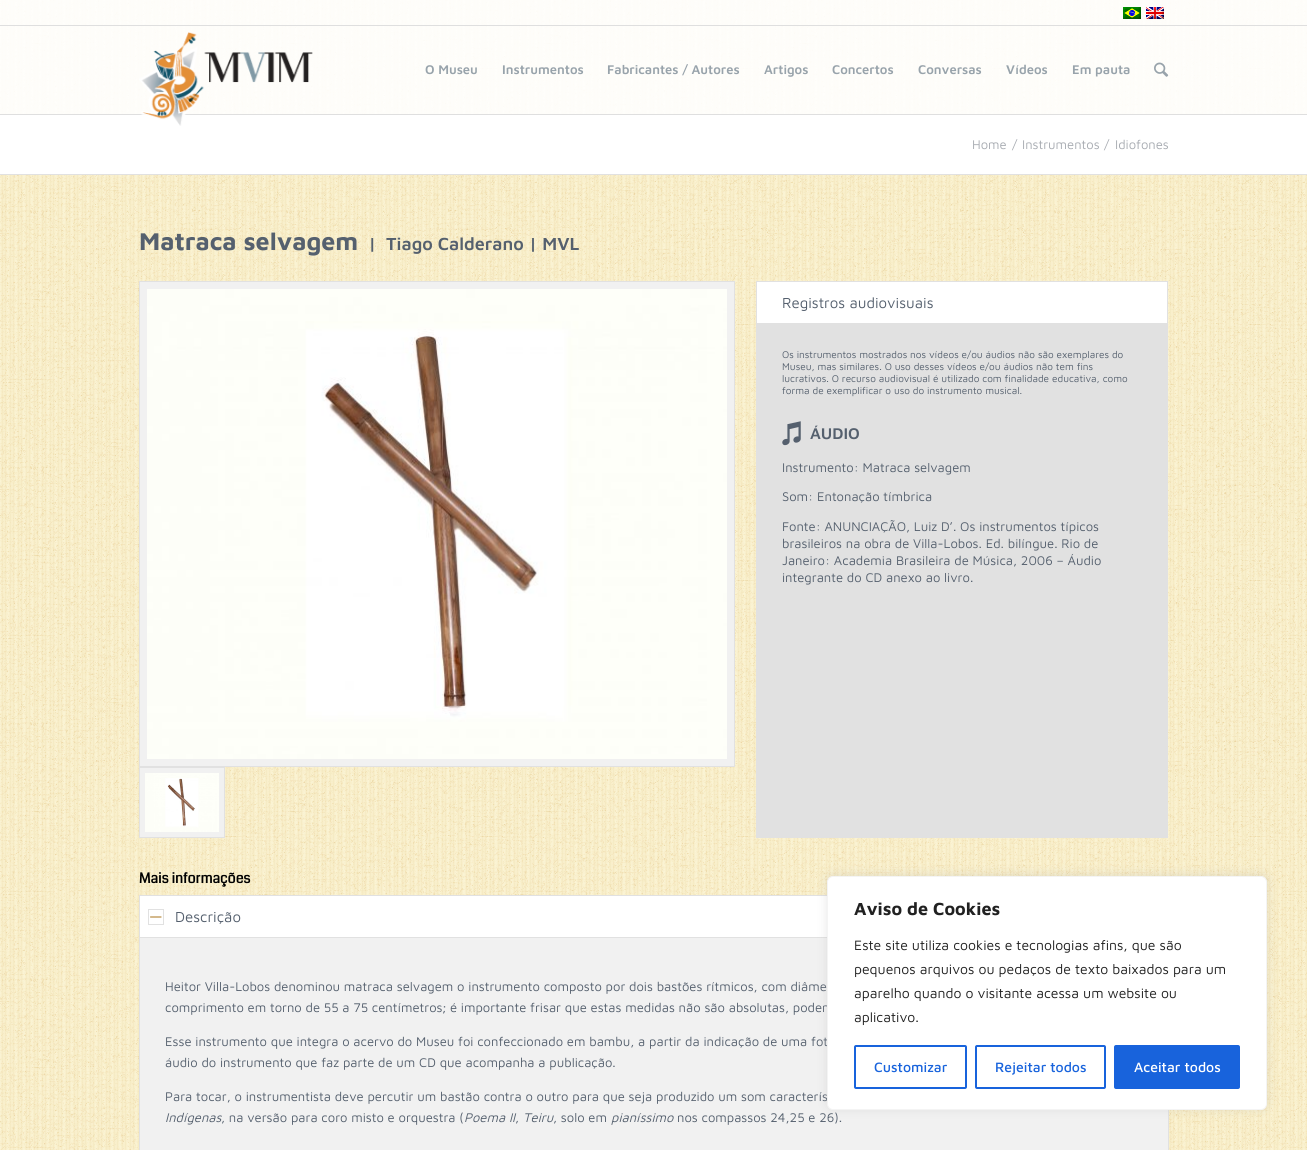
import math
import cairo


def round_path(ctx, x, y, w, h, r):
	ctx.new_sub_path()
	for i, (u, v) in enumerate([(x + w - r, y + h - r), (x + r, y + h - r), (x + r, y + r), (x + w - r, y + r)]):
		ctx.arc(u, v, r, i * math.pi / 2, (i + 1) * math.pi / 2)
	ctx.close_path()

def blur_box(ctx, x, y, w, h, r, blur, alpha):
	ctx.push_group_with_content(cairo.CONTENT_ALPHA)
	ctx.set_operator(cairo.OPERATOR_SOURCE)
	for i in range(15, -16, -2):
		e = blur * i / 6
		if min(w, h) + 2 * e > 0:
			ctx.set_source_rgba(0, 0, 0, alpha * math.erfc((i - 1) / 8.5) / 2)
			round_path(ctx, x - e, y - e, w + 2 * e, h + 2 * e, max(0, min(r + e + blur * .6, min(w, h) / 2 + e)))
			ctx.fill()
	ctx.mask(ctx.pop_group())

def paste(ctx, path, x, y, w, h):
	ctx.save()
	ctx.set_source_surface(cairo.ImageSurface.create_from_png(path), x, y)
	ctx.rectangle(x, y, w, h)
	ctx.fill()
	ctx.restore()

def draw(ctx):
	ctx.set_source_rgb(1, 1, 1)
	ctx.paint()
	paste(ctx, 'media/5.png', 0, 0, 1307, 1150)
	ctx.set_source_rgba(1, 1, 1, 0.9)
	ctx.rectangle(0, 0, 1307, 114)
	ctx.fill()
	ctx.set_source_rgb(0.875, 0.875, 0.875)
	ctx.rectangle(0, 25, 1307, 1)
	ctx.fill()
	paste(ctx, 'media/1.png', 1123, 7, 18, 12)
	paste(ctx, 'media/2.png', 1146, 7, 18, 12)
	ctx.rectangle(0, 114, 1307, 1)
	ctx.fill()
	ctx.set_source_rgb(1, 1, 1)
	ctx.rectangle(0, 115, 1307, 59)
	ctx.fill()
	paste(ctx, 'media/3.png', 139, 32, 174, 94)
	ctx.select_font_face('Maven Pro SemiBold')
	ctx.set_font_size(13)
	ctx.set_source_rgb(0.596, 0.639, 0.671)
	for x, y, s in [
		(425, 74, 'O Museu'),
		(502, 74, 'Instrumentos'),
		(607, 74, 'Fabricantes / Autores'),
		(764, 74, 'Artigos'),
		(832, 74, 'Concertos'),
		(918, 74, 'Conversas'),
		(1006, 74, 'Vídeos'),
		(1072, 74, 'Em pauta'),
	]:
		ctx.move_to(x, y)
		ctx.show_text(s)
	paste(ctx, 'media/4.png', 1154, 62, 15, 15)
	ctx.set_source_rgb(0.882, 0.882, 0.882)
	ctx.rectangle(0, 174, 1307, 1)
	ctx.fill()
	ctx.select_font_face('Maven Pro')
	ctx.set_source_rgb(0.655, 0.671, 0.694)
	for x, y, s in [
		(972, 149, 'Home'),
		(1012, 149, '/'),
		(1022, 149, 'Instrumentos'),
		(1104, 149, '/'),
		(1115, 149, 'Idiofones'),
	]:
		ctx.move_to(x, y)
		ctx.show_text(s)
	ctx.select_font_face('Maven Pro', cairo.FONT_SLANT_NORMAL, cairo.FONT_WEIGHT_BOLD)
	ctx.set_font_size(25)
	ctx.set_source_rgb(0.333, 0.376, 0.431)
	ctx.move_to(139, 250)
	ctx.show_text('Matraca selvagem')
	ctx.select_font_face('Maven Pro SemiBold')
	ctx.set_font_size(18)
	ctx.move_to(368, 250)
	ctx.show_text('|')
	ctx.move_to(386, 250)
	ctx.show_text('Tiago Calderano | MVL')
	ctx.set_source_rgb(0.945, 0.945, 0.945)
	ctx.rectangle(139.5, 281.5, 595, 485)
	ctx.fill_preserve()
	ctx.set_source_rgb(0.882, 0.882, 0.882)
	ctx.set_line_width(1)
	ctx.stroke()
	paste(ctx, 'media/6.png', 147, 289, 580, 470)
	ctx.set_source_rgb(0.945, 0.945, 0.945)
	ctx.rectangle(139.5, 767.5, 85, 70)
	ctx.fill_preserve()
	ctx.set_source_rgb(0.882, 0.882, 0.882)
	ctx.stroke()
	paste(ctx, 'media/7.png', 145, 773, 74, 59)
	ctx.rectangle(756, 281, 412, 557)
	ctx.fill()
	ctx.set_source_rgb(1, 1, 1)
	ctx.rectangle(757, 282, 410, 41)
	ctx.fill()
	ctx.select_font_face('Maven Pro')
	ctx.set_font_size(15)
	ctx.set_source_rgb(0.333, 0.376, 0.431)
	ctx.move_to(782, 308)
	ctx.show_text('Registros audiovisuais')
	ctx.set_font_size(10)
	for x, y, s in [
		(782, 358, 'Os instrumentos mostrados nos vídeos e/ou áudios não são exemplares do'),
		(782, 370, 'Museu, mas similares. O uso desses vídeos e/ou áudios não tem fins'),
		(782, 382, 'lucrativos. O recurso audiovisual é utilizado com finalidade educativa, como'),
		(782, 394, 'forma de exemplificar o uso do instrumento musical.'),
	]:
		ctx.move_to(x, y)
		ctx.show_text(s)
	paste(ctx, 'media/8.png', 782, 421, 19, 25)
	ctx.select_font_face('Maven Pro SemiBold')
	ctx.set_font_size(16)
	ctx.move_to(810, 439)
	ctx.show_text('ÁUDIO')
	ctx.select_font_face('Maven Pro')
	ctx.set_font_size(13)
	for x, y, s in [
		(782, 472, 'Instrumento: Matraca selvagem'),
		(782, 501, 'Som: Entonação tímbrica'),
		(782, 531, 'Fonte: ANUNCIAÇÃO, Luiz D’. Os instrumentos típicos'),
		(782, 548, 'brasileiros na obra de Villa-Lobos. Ed. bilíngue. Rio de'),
		(782, 565, 'Janeiro: Academia Brasileira de Música, 2006 – Áudio'),
		(782, 582, 'integrante do CD anexo ao livro.'),
	]:
		ctx.move_to(x, y)
		ctx.show_text(s)
	ctx.select_font_face('Coda', cairo.FONT_SLANT_NORMAL, cairo.FONT_WEIGHT_BOLD)
	ctx.set_font_size(14)
	ctx.set_source_rgb(0, 0, 0)
	ctx.move_to(139, 883)
	ctx.show_text('Mais informações')
	ctx.set_source_rgb(0.945, 0.945, 0.945)
	ctx.rectangle(140, 938, 1028, 212)
	ctx.fill()
	ctx.set_source_rgb(0.882, 0.882, 0.882)
	ctx.rectangle(139, 895, 688, 1)
	ctx.rectangle(1168, 1110, 1, 40)
	ctx.rectangle(139, 895, 1, 255)
	ctx.fill()
	ctx.set_source_rgb(1, 1, 1)
	ctx.rectangle(140, 896, 687, 41)
	ctx.fill()
	ctx.rectangle(148.5, 909.5, 15, 15)
	ctx.set_source_rgb(0.882, 0.882, 0.882)
	ctx.stroke()
	paste(ctx, 'media/9.png', 150, 916, 12, 2)
	ctx.select_font_face('Maven Pro')
	ctx.set_font_size(15)
	ctx.set_source_rgb(0.333, 0.376, 0.431)
	ctx.move_to(175, 922)
	ctx.show_text('Descrição')
	ctx.set_source_rgb(0.882, 0.882, 0.882)
	ctx.rectangle(140, 937, 687, 1)
	ctx.fill()
	ctx.set_font_size(13)
	ctx.set_source_rgb(0.333, 0.376, 0.431)
	for x, y, s in [
		(165, 991, 'Heitor Villa-Lobos denominou matraca selvagem o instrumento composto por dois bastões rítmicos, com diâme'),
		(165, 1012, 'comprimento em torno de 55 a 75 centímetros; é importante frisar que estas medidas não são absolutas, poden'),
		(165, 1046, 'Esse instrumento que integra o acervo do Museu foi confeccionado em bambu, a partir da indicação de uma fot'),
		(165, 1067, 'áudio do instrumento que faz parte de um CD que acompanha a publicação.'),
		(165, 1101, 'Para tocar, o instrumentista deve percutir um bastão contra o outro para que seja produzido um som caracterís'),
	]:
		ctx.move_to(x, y)
		ctx.show_text(s)
	ctx.select_font_face('Maven Pro', cairo.FONT_SLANT_ITALIC)
	ctx.move_to(165, 1122)
	ctx.show_text('Indígenas')
	ctx.select_font_face('Maven Pro')
	ctx.move_to(221, 1122)
	ctx.show_text(', na versão para coro misto e orquestra (')
	ctx.select_font_face('Maven Pro', cairo.FONT_SLANT_ITALIC)
	ctx.move_to(464, 1122)
	ctx.show_text('Poema II')
	ctx.move_to(523, 1122)
	ctx.show_text('Teiru')
	ctx.select_font_face('Maven Pro')
	ctx.move_to(553, 1122)
	ctx.show_text(', solo em')
	ctx.select_font_face('Maven Pro', cairo.FONT_SLANT_ITALIC)
	ctx.move_to(611, 1122)
	ctx.show_text('pianíssimo')
	ctx.select_font_face('Maven Pro')
	ctx.move_to(677, 1122)
	ctx.show_text('nos compassos 24,25 e 26).')
	ctx.move_to(515, 1122)
	ctx.show_text(',')
	ctx.set_source_rgb(0.675, 0.671, 0.671)
	blur_box(ctx, 827, 875, 440, 234, 6, 5, 0.3)
	ctx.set_source_rgb(1, 1, 1)
	round_path(ctx, 827.5, 876.5, 439, 233, 5.5)
	ctx.fill_preserve()
	ctx.set_source_rgb(0.957, 0.957, 0.957)
	ctx.stroke()
	ctx.select_font_face('Maven Pro', cairo.FONT_SLANT_NORMAL, cairo.FONT_WEIGHT_BOLD)
	ctx.set_font_size(18)
	ctx.set_source_rgb(0.129, 0.129, 0.129)
	ctx.move_to(854, 915)
	ctx.show_text('Aviso de Cookies')
	ctx.select_font_face('Maven Pro')
	ctx.set_font_size(14)
	for x, y, s in [
		(854, 950, 'Este site utiliza cookies e tecnologias afins, que são'),
		(854, 974, 'pequenos arquivos ou pedaços de texto baixados para um'),
		(854, 998, 'aparelho quando o visitante acessa um website ou'),
		(854, 1022, 'aplicativo.'),
	]:
		ctx.move_to(x, y)
		ctx.show_text(s)
	round_path(ctx, 855, 1046, 111, 42, 1)
	ctx.set_source_rgb(0.094, 0.388, 0.863)
	ctx.set_line_width(2)
	ctx.stroke()
	ctx.select_font_face('Maven Pro Medium')
	ctx.move_to(874, 1072)
	ctx.show_text('Customizar')
	round_path(ctx, 976, 1046, 129, 42, 1)
	ctx.stroke()
	ctx.move_to(995, 1072)
	ctx.show_text('Rejeitar todos')
	round_path(ctx, 1115, 1046, 124, 42, 1)
	ctx.fill_preserve()
	ctx.stroke()
	ctx.set_source_rgb(1, 1, 1)
	ctx.move_to(1134, 1072)
	ctx.show_text('Aceitar todos')


surface = cairo.ImageSurface(cairo.FORMAT_RGB24, 1307, 1150)
ctx = cairo.Context(surface)
options = cairo.FontOptions()
options.set_hint_metrics(cairo.HINT_METRICS_OFF)
options.set_hint_style(cairo.HINT_STYLE_NONE)
ctx.set_font_options(options)
ctx.set_miter_limit(4)
draw(ctx)
surface.write_to_png('image.png')
